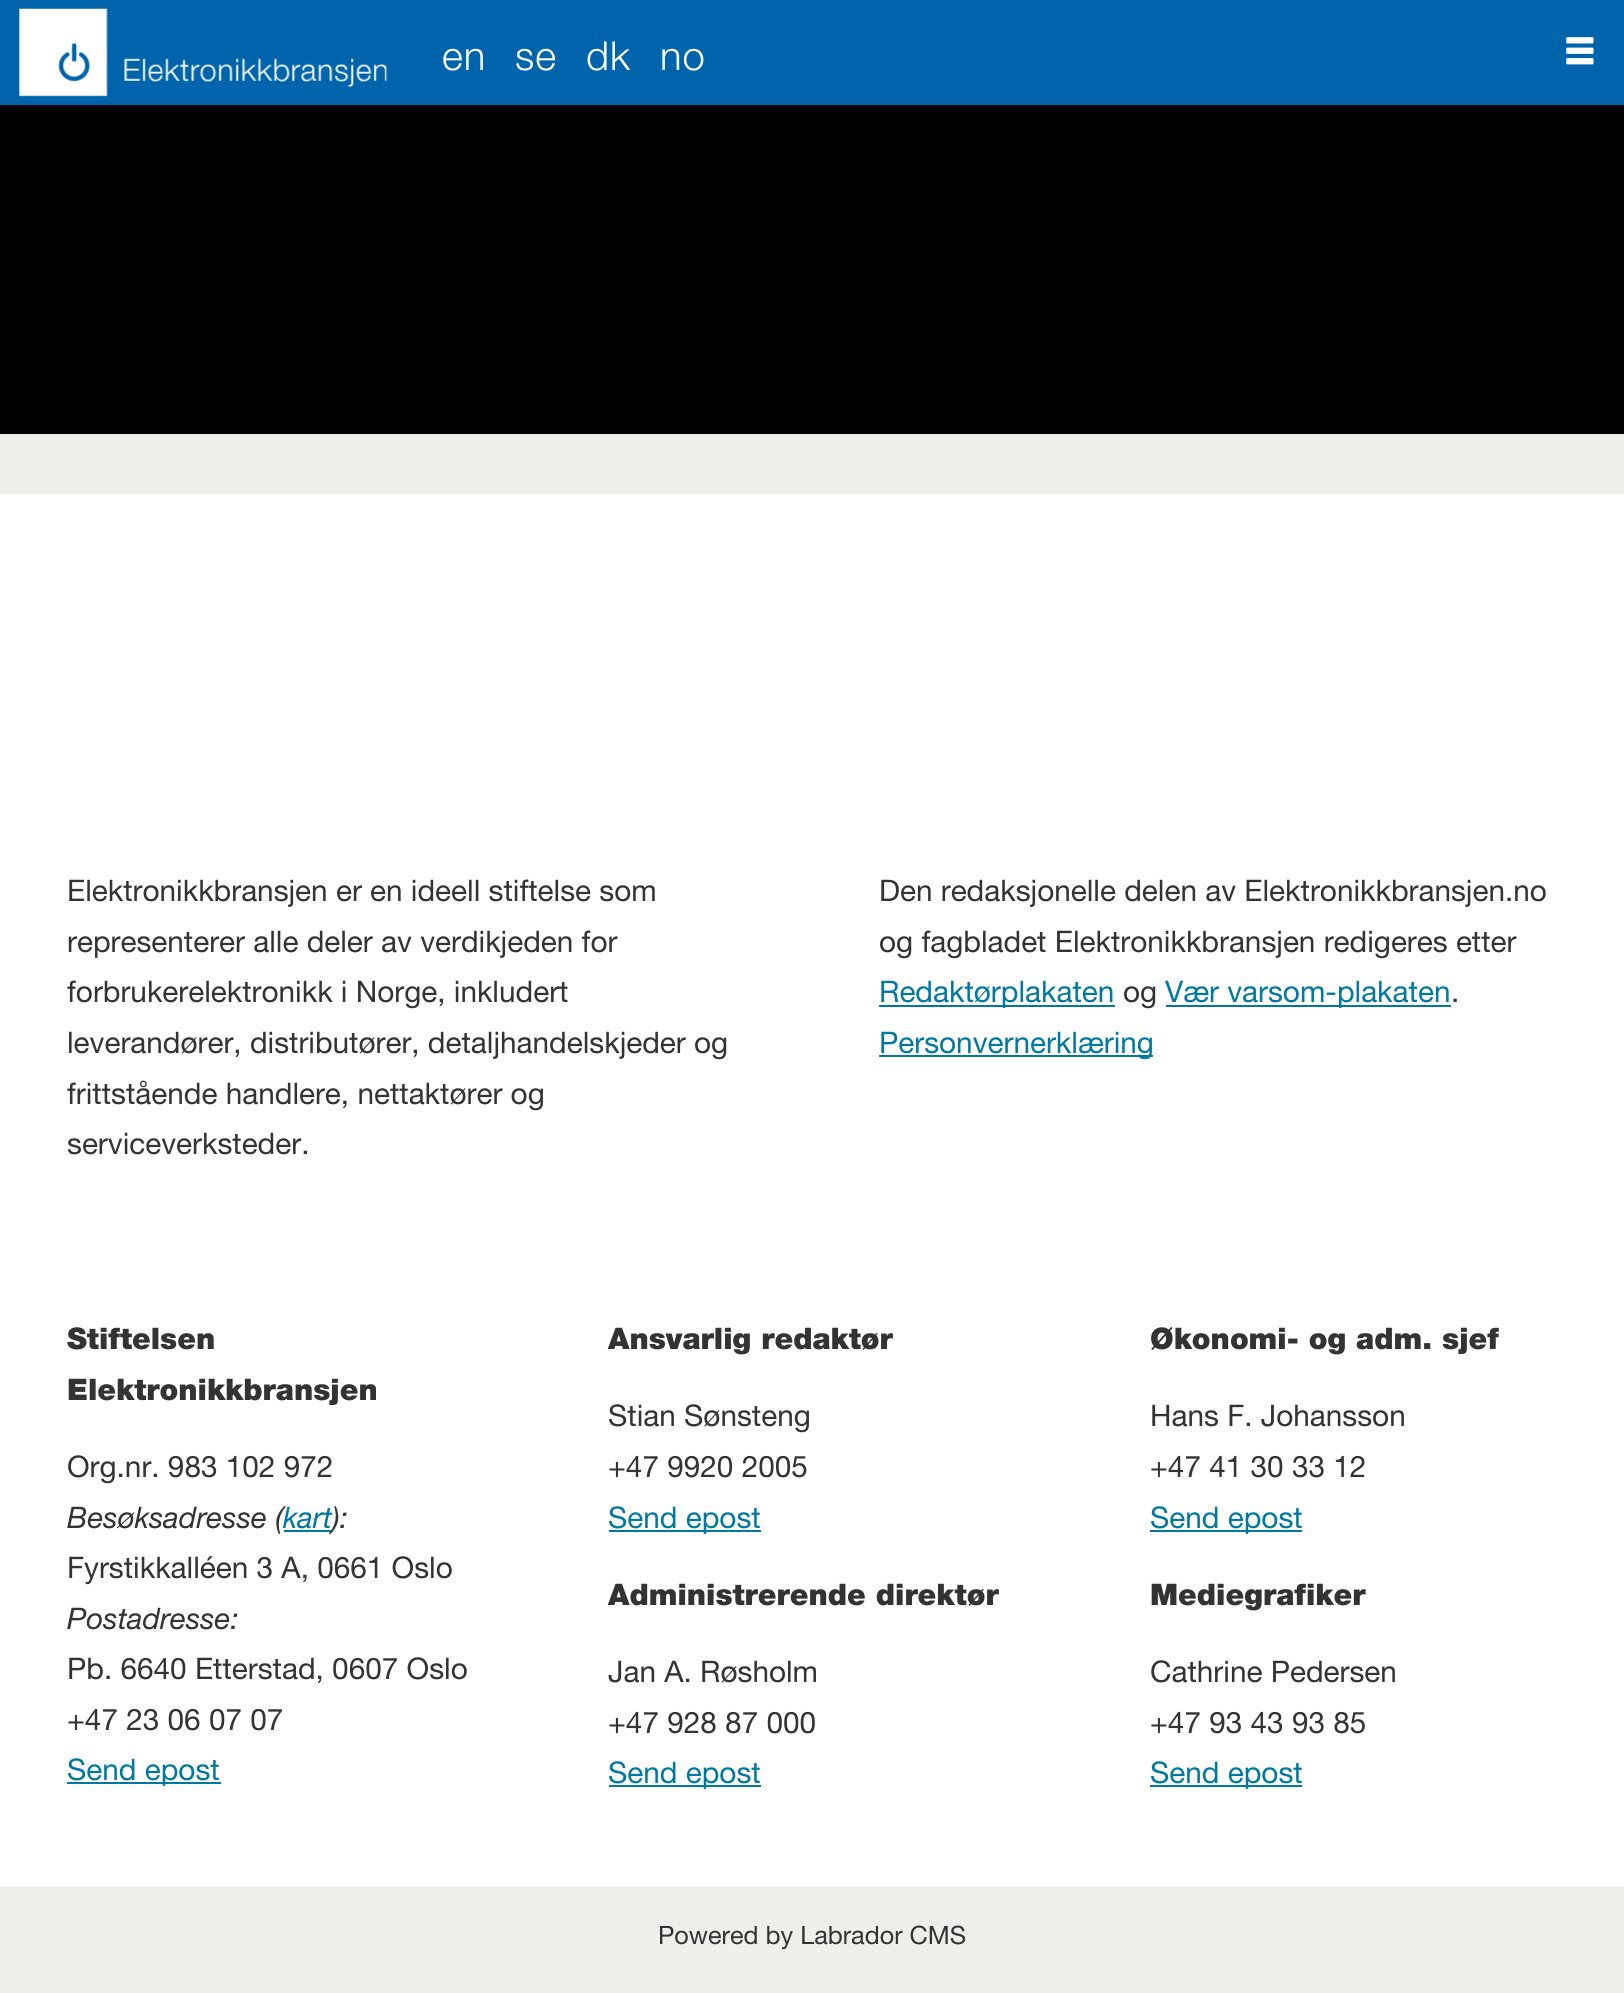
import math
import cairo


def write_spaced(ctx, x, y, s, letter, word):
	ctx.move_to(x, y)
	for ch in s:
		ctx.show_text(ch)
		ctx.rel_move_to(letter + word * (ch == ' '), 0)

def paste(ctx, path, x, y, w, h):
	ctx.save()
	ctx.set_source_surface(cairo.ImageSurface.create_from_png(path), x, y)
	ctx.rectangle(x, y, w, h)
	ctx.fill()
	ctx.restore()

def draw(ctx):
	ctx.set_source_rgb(0.937, 0.933, 0.918)
	ctx.paint()
	ctx.set_source_rgb(0, 0.392, 0.678)
	ctx.rectangle(0, 0, 1624, 105)
	ctx.fill()
	paste(ctx, 'media/1.png', 19, 8, 369, 89)
	ctx.select_font_face('Helvetica Neue Light')
	ctx.set_font_size(40)
	ctx.set_source_rgb(1, 1, 1)
	for x, y, s in [
		(442, 70, 'en'),
		(515, 70, 'se'),
		(586, 70, 'dk'),
		(660, 70, 'no'),
	]:
		write_spaced(ctx, x, y, s, 1, 0)
	paste(ctx, 'media/2.png', 1566, 37, 28, 28)
	ctx.set_source_rgb(0, 0, 0)
	ctx.rectangle(0, 105, 1624, 329)
	ctx.fill()
	ctx.set_source_rgb(1, 1, 1)
	ctx.rectangle(0, 494, 1624, 1393)
	ctx.fill()
	ctx.select_font_face('Helvetica Neue')
	ctx.set_font_size(29.75)
	ctx.set_source_rgb(0.2, 0.2, 0.2)
	for x, y, s in [
		(67, 901, 'Elektronikkbransjen er en ideell stiftelse som'),
		(67, 952, 'representerer alle deler av verdikjeden for'),
		(67, 1002, 'forbrukerelektronikk i Norge, inkludert'),
		(67, 1053, 'leverandører, distributører, detaljhandelskjeder og'),
		(67, 1104, 'frittstående handlere, nettaktører og'),
		(67, 1154, 'serviceverksteder.'),
		(879, 901, 'Den redaksjonelle delen av Elektronikkbransjen.no'),
		(879, 952, 'og fagbladet Elektronikkbransjen redigeres etter'),
	]:
		ctx.move_to(x, y)
		ctx.show_text(s)
	ctx.set_source_rgb(0, 0.471, 0.627)
	ctx.rectangle(879, 1005, 236, 2)
	ctx.fill()
	ctx.move_to(879, 1002)
	ctx.show_text('Redaktørplakaten')
	ctx.set_source_rgb(0.2, 0.2, 0.2)
	ctx.move_to(1123, 1002)
	ctx.show_text('og')
	ctx.set_source_rgb(0, 0.471, 0.627)
	ctx.rectangle(1166, 1005, 285, 2)
	ctx.fill()
	ctx.move_to(1165, 1002)
	ctx.show_text('Vær varsom-plakaten')
	ctx.set_source_rgb(0.2, 0.2, 0.2)
	ctx.move_to(1451, 1002)
	ctx.show_text('.')
	ctx.set_source_rgb(0, 0.471, 0.627)
	ctx.rectangle(879, 1055, 274, 2)
	ctx.fill()
	ctx.move_to(879, 1053)
	ctx.show_text('Personvernerklæring')
	ctx.select_font_face('Helvetica Neue Black')
	ctx.set_source_rgb(0.2, 0.2, 0.2)
	ctx.move_to(67, 1349)
	ctx.show_text('Stiftelsen')
	ctx.move_to(67, 1400)
	ctx.show_text('Elektronikkbransjen')
	ctx.select_font_face('Helvetica Neue')
	ctx.move_to(67, 1477)
	ctx.show_text('Org.nr. 983 102 972')
	ctx.select_font_face('Helvetica Neue', cairo.FONT_SLANT_ITALIC)
	ctx.move_to(67, 1528)
	ctx.show_text('Besøksadresse (')
	ctx.set_source_rgb(0, 0.471, 0.627)
	ctx.rectangle(284, 1530, 49, 2)
	ctx.fill()
	ctx.move_to(283, 1528)
	ctx.show_text('kart')
	ctx.set_source_rgb(0.2, 0.2, 0.2)
	ctx.move_to(332, 1528)
	ctx.show_text('):')
	ctx.select_font_face('Helvetica Neue')
	ctx.move_to(67, 1578)
	ctx.show_text('Fyrstikkalléen 3 A, 0661 Oslo')
	ctx.select_font_face('Helvetica Neue', cairo.FONT_SLANT_ITALIC)
	ctx.move_to(67, 1629)
	ctx.show_text('Postadresse:')
	ctx.select_font_face('Helvetica Neue')
	ctx.move_to(67, 1679)
	ctx.show_text('Pb. 6640 Etterstad, 0607 Oslo')
	ctx.move_to(67, 1730)
	ctx.show_text('+47 23 06 07 07')
	ctx.set_source_rgb(0, 0.471, 0.627)
	ctx.rectangle(67, 1782, 154, 2)
	ctx.fill()
	ctx.move_to(67, 1780)
	ctx.show_text('Send epost')
	ctx.select_font_face('Helvetica Neue Black')
	ctx.set_source_rgb(0.2, 0.2, 0.2)
	ctx.move_to(608, 1349)
	ctx.show_text('Ansvarlig redaktør')
	ctx.select_font_face('Helvetica Neue')
	ctx.move_to(608, 1426)
	ctx.show_text('Stian Sønsteng')
	ctx.move_to(608, 1477)
	ctx.show_text('+47 9920 2005')
	ctx.set_source_rgb(0, 0.471, 0.627)
	ctx.rectangle(609, 1530, 152, 2)
	ctx.fill()
	ctx.move_to(608, 1528)
	ctx.show_text('Send epost')
	ctx.select_font_face('Helvetica Neue Black')
	ctx.set_source_rgb(0.2, 0.2, 0.2)
	ctx.move_to(608, 1605)
	ctx.show_text('Administrerende direktør')
	ctx.select_font_face('Helvetica Neue')
	ctx.move_to(608, 1682)
	ctx.show_text('Jan A. Røsholm')
	ctx.move_to(608, 1733)
	ctx.show_text('+47 928 87 000')
	ctx.set_source_rgb(0, 0.471, 0.627)
	ctx.rectangle(609, 1785, 152, 2)
	ctx.fill()
	ctx.move_to(608, 1783)
	ctx.show_text('Send epost')
	ctx.select_font_face('Helvetica Neue Black')
	ctx.set_source_rgb(0.2, 0.2, 0.2)
	ctx.move_to(1150, 1349)
	ctx.show_text('Økonomi- og adm. sjef')
	ctx.select_font_face('Helvetica Neue')
	ctx.move_to(1150, 1426)
	ctx.show_text('Hans F. Johansson')
	ctx.move_to(1150, 1477)
	ctx.show_text('+47 41 30 33 12')
	ctx.set_source_rgb(0, 0.471, 0.627)
	ctx.rectangle(1150, 1530, 152, 2)
	ctx.fill()
	ctx.move_to(1150, 1528)
	ctx.show_text('Send epost')
	ctx.select_font_face('Helvetica Neue Black')
	ctx.set_source_rgb(0.2, 0.2, 0.2)
	ctx.move_to(1150, 1605)
	ctx.show_text('Mediegrafiker')
	ctx.select_font_face('Helvetica Neue')
	ctx.move_to(1150, 1682)
	ctx.show_text('Cathrine Pedersen')
	ctx.move_to(1150, 1733)
	ctx.show_text('+47 93 43 93 85')
	ctx.set_source_rgb(0, 0.471, 0.627)
	ctx.rectangle(1150, 1785, 152, 2)
	ctx.fill()
	ctx.move_to(1150, 1783)
	ctx.show_text('Send epost')
	ctx.set_font_size(25.25)
	ctx.set_source_rgb(0.2, 0.2, 0.2)
	ctx.move_to(658, 1944)
	ctx.show_text('Powered by Labrador CMS')


surface = cairo.ImageSurface(cairo.FORMAT_RGB24, 1624, 1993)
ctx = cairo.Context(surface)
options = cairo.FontOptions()
options.set_hint_metrics(cairo.HINT_METRICS_OFF)
options.set_hint_style(cairo.HINT_STYLE_NONE)
ctx.set_font_options(options)
ctx.set_miter_limit(4)
draw(ctx)
surface.write_to_png('image.png')
